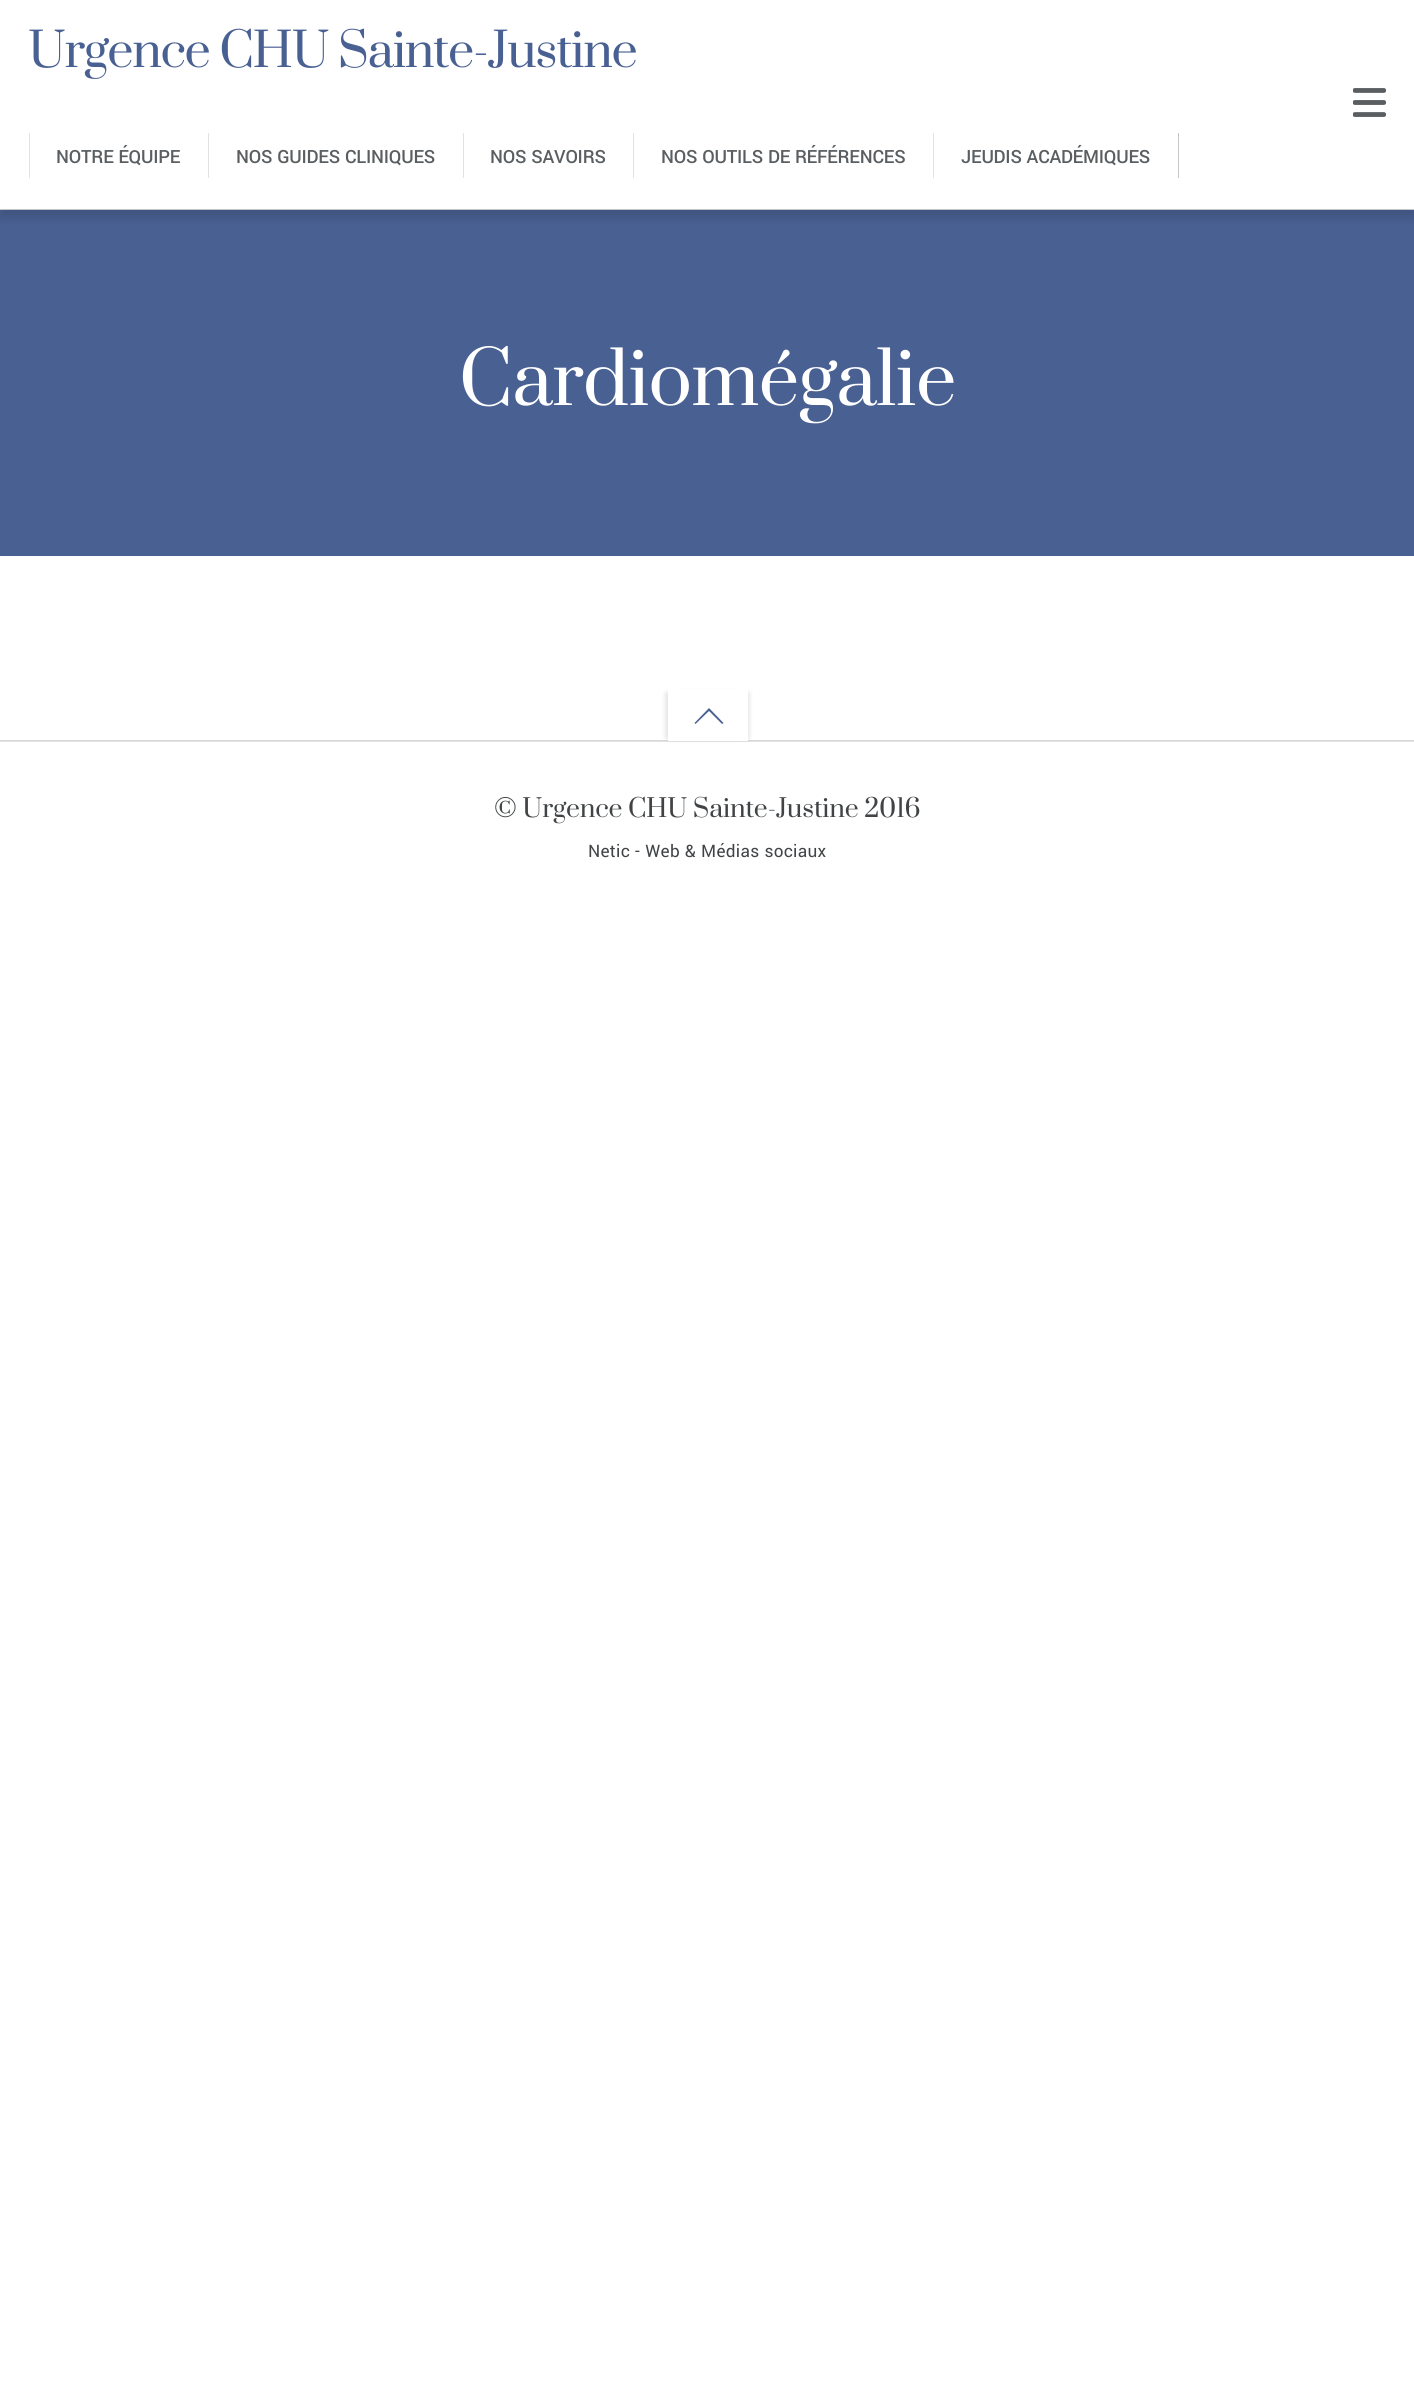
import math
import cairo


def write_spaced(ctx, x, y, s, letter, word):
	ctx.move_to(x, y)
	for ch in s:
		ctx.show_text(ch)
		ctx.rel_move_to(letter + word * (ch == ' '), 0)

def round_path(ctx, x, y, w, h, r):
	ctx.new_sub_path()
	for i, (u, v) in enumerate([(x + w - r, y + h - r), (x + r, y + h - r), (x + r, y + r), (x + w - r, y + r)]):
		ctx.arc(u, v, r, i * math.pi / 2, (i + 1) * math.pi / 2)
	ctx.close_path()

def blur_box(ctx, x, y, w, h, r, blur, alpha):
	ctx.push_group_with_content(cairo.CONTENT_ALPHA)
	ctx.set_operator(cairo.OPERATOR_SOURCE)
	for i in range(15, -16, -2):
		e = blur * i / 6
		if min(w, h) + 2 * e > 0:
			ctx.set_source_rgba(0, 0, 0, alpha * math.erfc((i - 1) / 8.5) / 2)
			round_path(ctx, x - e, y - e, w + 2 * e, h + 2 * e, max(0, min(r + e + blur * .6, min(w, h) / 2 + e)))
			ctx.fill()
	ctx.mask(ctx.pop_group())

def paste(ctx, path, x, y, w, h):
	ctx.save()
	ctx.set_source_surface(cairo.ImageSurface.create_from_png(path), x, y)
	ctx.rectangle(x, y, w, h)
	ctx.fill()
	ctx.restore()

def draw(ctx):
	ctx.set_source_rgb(1, 1, 1)
	ctx.paint()
	ctx.set_source_rgb(0.286, 0.376, 0.576)
	ctx.rectangle(0, 210, 1414, 346)
	ctx.fill()
	ctx.save()
	ctx.rectangle(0, 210, 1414, 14)
	ctx.clip()
	ctx.set_source_rgb(0, 0, 0)
	blur_box(ctx, 0, 8, 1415, 210, 0, 6, 0.14)
	ctx.restore()
	ctx.set_source_rgb(0.776, 0.78, 0.78)
	ctx.rectangle(0, 209, 1414, 1)
	ctx.fill()
	ctx.select_font_face('Prata')
	ctx.set_font_size(46.75)
	ctx.set_source_rgb(0.286, 0.376, 0.576)
	write_spaced(ctx, 28, 67, 'Urgence CHU Sainte-Justine', -1.4, 0)
	paste(ctx, 'media/1.png', 1353, 88, 33, 29)
	ctx.set_source_rgb(0.886, 0.886, 0.886)
	ctx.rectangle(29, 133, 1, 45)
	ctx.fill()
	ctx.select_font_face('Yantramanav Medium')
	ctx.set_font_size(20.25)
	ctx.set_source_rgb(0.353, 0.369, 0.38)
	write_spaced(ctx, 56, 163, 'NOTRE ÉQUIPE', -0.2, 0)
	ctx.set_source_rgb(0.886, 0.886, 0.886)
	ctx.rectangle(208, 133, 1, 45)
	ctx.fill()
	ctx.set_source_rgb(0.353, 0.369, 0.38)
	write_spaced(ctx, 236, 163, 'NOS GUIDES CLINIQUES', -0.2, 0)
	ctx.set_source_rgb(0.886, 0.886, 0.886)
	ctx.rectangle(463, 133, 1, 45)
	ctx.fill()
	ctx.set_source_rgb(0.353, 0.369, 0.38)
	write_spaced(ctx, 490, 163, 'NOS SAVOIRS', -0.2, 0)
	ctx.set_source_rgb(0.886, 0.886, 0.886)
	ctx.rectangle(633, 133, 1, 45)
	ctx.fill()
	ctx.set_source_rgb(0.353, 0.369, 0.38)
	write_spaced(ctx, 661, 163, 'NOS OUTILS DE RÉFÉRENCES', -0.2, 0)
	ctx.set_source_rgb(0.773, 0.773, 0.773)
	ctx.rectangle(1178, 133, 1, 45)
	ctx.fill()
	ctx.set_source_rgb(0.886, 0.886, 0.886)
	ctx.rectangle(933, 133, 1, 45)
	ctx.fill()
	ctx.set_source_rgb(0.353, 0.369, 0.38)
	write_spaced(ctx, 961, 163, 'JEUDIS ACADÉMIQUES', -0.2, 0)
	ctx.select_font_face('Prata')
	ctx.set_font_size(72)
	ctx.set_source_rgb(1, 1, 1)
	write_spaced(ctx, 459, 405, 'Cardiomégalie', -0.75, 0)
	ctx.set_source_rgb(0.847, 0.855, 0.855)
	ctx.rectangle(0, 740, 1414, 1)
	ctx.fill()
	ctx.set_source_rgb(0.882, 0.89, 0.89)
	ctx.rectangle(0, 741, 1414, 1)
	ctx.fill()
	ctx.set_source_rgb(0, 0, 0)
	blur_box(ctx, 666, 693, 73, 45, 0, 2.5, 0.13)
	blur_box(ctx, 676, 693, 73, 45, 0, 2.5, 0.13)
	ctx.set_source_rgb(1, 1, 1)
	ctx.rectangle(668, 689, 80, 52)
	ctx.fill()
	ctx.set_source_rgb(0.286, 0.376, 0.576)
	ctx.new_path()
	ctx.move_to(723.5, 723)
	ctx.line_to(722, 724)
	ctx.line_to(709, 711)
	ctx.line_to(695.5, 724)
	ctx.line_to(694.5, 723)
	ctx.line_to(709, 708)
	ctx.close_path()
	ctx.fill()
	ctx.set_font_size(24.75)
	ctx.set_source_rgb(0.255, 0.267, 0.275)
	write_spaced(ctx, 494, 817, '© Urgence CHU Sainte-Justine 2016', -0.2, 0)
	ctx.select_font_face('Yantramanav')
	ctx.set_font_size(19.1)
	write_spaced(ctx, 588, 857, 'Netic - Web & Médias sociaux', 0.25, 0)


surface = cairo.ImageSurface(cairo.FORMAT_RGB24, 1414, 2402)
ctx = cairo.Context(surface)
options = cairo.FontOptions()
options.set_hint_metrics(cairo.HINT_METRICS_OFF)
options.set_hint_style(cairo.HINT_STYLE_NONE)
ctx.set_font_options(options)
ctx.set_miter_limit(4)
draw(ctx)
surface.write_to_png('image.png')
